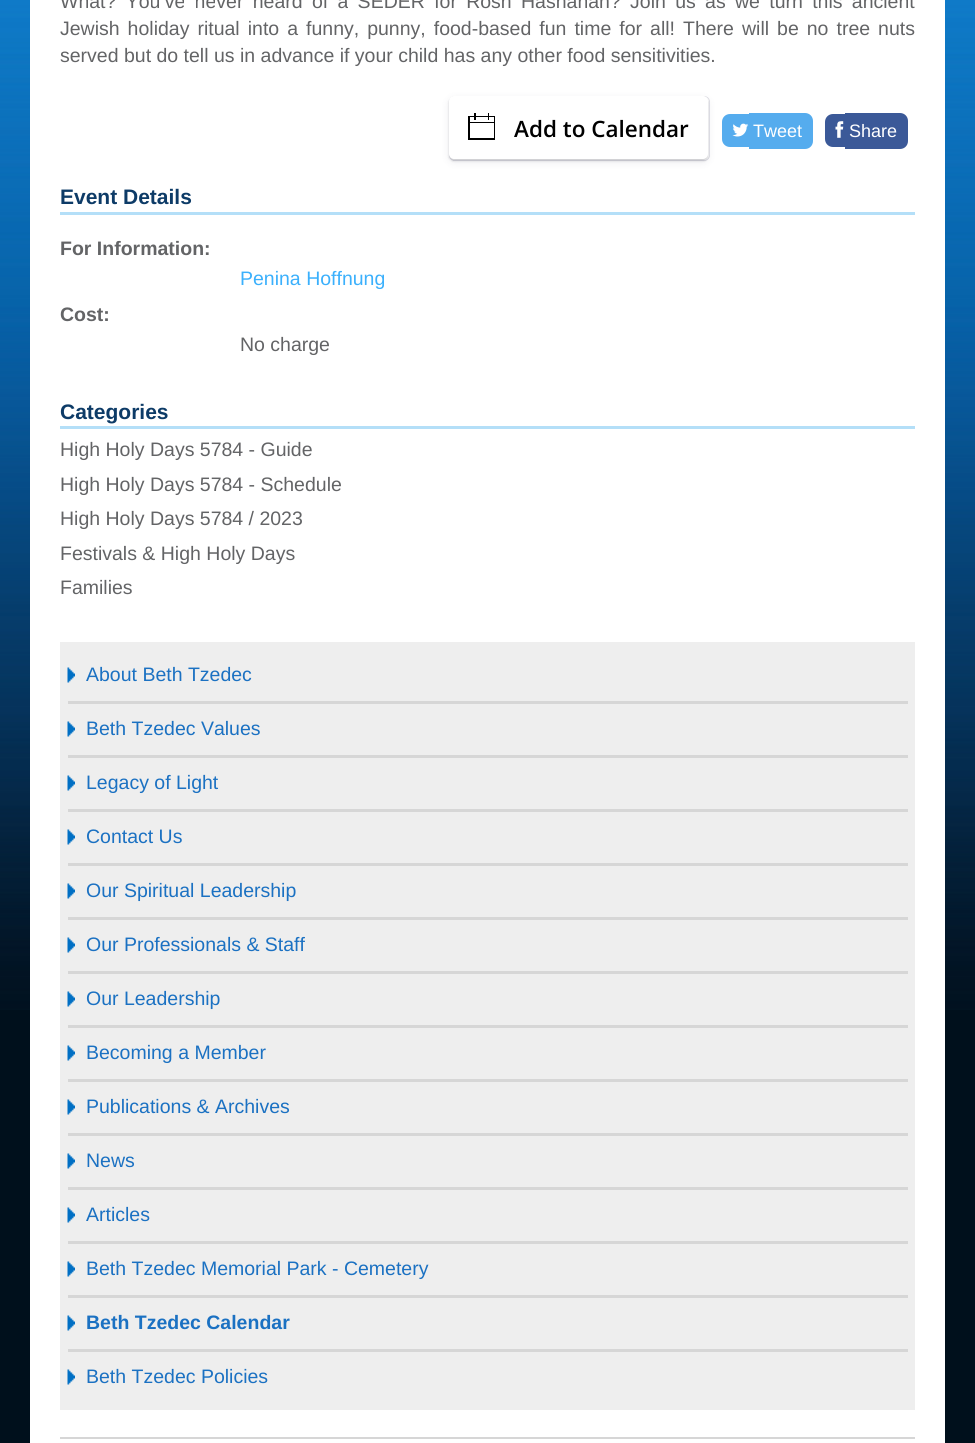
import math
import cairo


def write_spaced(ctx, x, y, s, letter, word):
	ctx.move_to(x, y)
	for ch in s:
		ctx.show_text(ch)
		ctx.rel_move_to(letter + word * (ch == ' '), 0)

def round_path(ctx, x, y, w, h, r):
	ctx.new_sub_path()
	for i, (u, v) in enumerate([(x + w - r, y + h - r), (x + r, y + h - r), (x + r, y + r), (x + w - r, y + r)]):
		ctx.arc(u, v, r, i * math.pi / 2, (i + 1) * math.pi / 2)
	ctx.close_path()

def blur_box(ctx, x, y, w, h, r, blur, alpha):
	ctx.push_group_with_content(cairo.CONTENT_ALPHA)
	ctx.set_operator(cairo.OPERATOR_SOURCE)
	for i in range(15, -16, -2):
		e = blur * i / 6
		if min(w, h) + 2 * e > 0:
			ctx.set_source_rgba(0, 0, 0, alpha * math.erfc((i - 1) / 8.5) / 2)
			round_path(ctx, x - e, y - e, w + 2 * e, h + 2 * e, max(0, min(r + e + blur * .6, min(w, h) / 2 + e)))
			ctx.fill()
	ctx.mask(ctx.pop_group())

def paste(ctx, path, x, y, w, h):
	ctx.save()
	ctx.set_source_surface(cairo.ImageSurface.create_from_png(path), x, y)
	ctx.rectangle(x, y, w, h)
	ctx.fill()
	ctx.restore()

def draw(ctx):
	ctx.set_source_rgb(0, 0.063, 0.11)
	ctx.paint()
	paste(ctx, 'media/1.png', 0, 0, 975, 1010)
	ctx.set_source_rgb(1, 1, 1)
	ctx.rectangle(30, 0, 915, 1443)
	ctx.fill()
	ctx.select_font_face('Liberation Sans')
	ctx.set_font_size(19.5)
	ctx.set_source_rgb(0.388, 0.392, 0.4)
	write_spaced(ctx, 60, 8, 'What? You’ve never heard of a SEDER for Rosh Hashanah? Join us as we turn this ancient', 0, 3.9)
	write_spaced(ctx, 60, 35, 'Jewish holiday ritual into a funny, punny, food-based fun time for all! There will be no tree nuts', 0, 2.6)
	ctx.move_to(60, 62)
	ctx.show_text('served but do tell us in advance if your child has any other food sensitivities.')
	ctx.set_source_rgb(0, 0, 0)
	blur_box(ctx, 449, 98, 259, 63, 5, 1.5, 0.08)
	blur_box(ctx, 449, 98, 259, 63, 5, 1, 0.07)
	ctx.set_source_rgb(0.196, 0.196, 0.365)
	blur_box(ctx, 449, 99, 259, 63, 5, 4, 0.1)
	round_path(ctx, 449.4, 96.4, 260.2, 64.2, 5.6)
	ctx.set_source_rgba(0.196, 0.196, 0.365, 0.17)
	ctx.set_line_width(0.8)
	ctx.stroke()
	ctx.set_source_rgb(1, 1, 1)
	round_path(ctx, 449, 96, 259, 63, 5)
	ctx.fill()
	paste(ctx, 'media/2.png', 468, 113, 27, 27)
	ctx.select_font_face('Open Sans SemiBold')
	ctx.set_font_size(22.5)
	ctx.set_source_rgb(0, 0, 0)
	ctx.move_to(514, 137)
	ctx.show_text('Add to Calendar')
	ctx.set_source_rgb(0.333, 0.675, 0.933)
	ctx.new_path()
	ctx.move_to(730, 114)
	ctx.line_to(749, 114)
	ctx.line_to(749, 147)
	ctx.line_to(730, 147)
	ctx.curve_to(725.5, 147, 722, 143.5, 722, 139)
	ctx.line_to(722, 122)
	ctx.curve_to(722, 117.5, 725.5, 114, 730, 114)
	ctx.close_path()
	ctx.fill()
	ctx.new_path()
	ctx.move_to(749, 113)
	ctx.line_to(805, 113)
	ctx.curve_to(809.5, 113, 813, 116.5, 813, 121)
	ctx.line_to(813, 141)
	ctx.curve_to(813, 145.5, 809.5, 149, 805, 149)
	ctx.line_to(749, 149)
	ctx.close_path()
	ctx.fill()
	paste(ctx, 'media/3.png', 732, 123, 17, 14)
	ctx.select_font_face('Liberation Sans')
	ctx.set_font_size(18)
	ctx.set_source_rgb(1, 1, 1)
	ctx.move_to(753, 137)
	ctx.show_text('Tweet')
	ctx.set_source_rgb(0.231, 0.349, 0.596)
	ctx.new_path()
	ctx.move_to(833, 114)
	ctx.line_to(845, 114)
	ctx.line_to(845, 147)
	ctx.line_to(833, 147)
	ctx.curve_to(828.5, 147, 825, 143.5, 825, 139)
	ctx.line_to(825, 122)
	ctx.curve_to(825, 117.5, 828.5, 114, 833, 114)
	ctx.close_path()
	ctx.fill()
	ctx.new_path()
	ctx.move_to(845, 113)
	ctx.line_to(900, 113)
	ctx.curve_to(904.5, 113, 908, 116.5, 908, 121)
	ctx.line_to(908, 141)
	ctx.curve_to(908, 145.5, 904.5, 149, 900, 149)
	ctx.line_to(845, 149)
	ctx.close_path()
	ctx.fill()
	paste(ctx, 'media/4.png', 835, 121, 9, 17)
	ctx.set_source_rgb(1, 1, 1)
	ctx.move_to(849, 137)
	ctx.show_text('Share')
	ctx.set_source_rgb(0.706, 0.875, 0.969)
	ctx.rectangle(60, 212, 855, 3)
	ctx.fill()
	ctx.select_font_face('Liberation Sans', cairo.FONT_SLANT_NORMAL, cairo.FONT_WEIGHT_BOLD)
	ctx.set_font_size(21)
	ctx.set_source_rgb(0.051, 0.231, 0.404)
	ctx.move_to(60, 204)
	ctx.show_text('Event Details')
	ctx.set_font_size(19.5)
	ctx.set_source_rgb(0.388, 0.392, 0.4)
	ctx.move_to(60, 255)
	ctx.show_text('For Information:')
	ctx.select_font_face('Liberation Sans')
	ctx.set_source_rgb(0.231, 0.69, 0.988)
	ctx.move_to(240, 285)
	ctx.show_text('Penina Hoffnung')
	ctx.select_font_face('Liberation Sans', cairo.FONT_SLANT_NORMAL, cairo.FONT_WEIGHT_BOLD)
	ctx.set_source_rgb(0.388, 0.392, 0.4)
	ctx.move_to(60, 321)
	ctx.show_text('Cost:')
	ctx.select_font_face('Liberation Sans')
	ctx.move_to(240, 351)
	ctx.show_text('No charge')
	ctx.set_source_rgb(0.706, 0.875, 0.969)
	ctx.rectangle(60, 426, 855, 3)
	ctx.fill()
	ctx.select_font_face('Liberation Sans', cairo.FONT_SLANT_NORMAL, cairo.FONT_WEIGHT_BOLD)
	ctx.set_font_size(21)
	ctx.set_source_rgb(0.051, 0.231, 0.404)
	ctx.move_to(60, 419)
	ctx.show_text('Categories')
	ctx.select_font_face('Liberation Sans')
	ctx.set_font_size(19.5)
	ctx.set_source_rgb(0.388, 0.392, 0.4)
	for x, y, s in [
		(60, 456, 'High Holy Days 5784 - Guide'),
		(60, 491, 'High Holy Days 5784 - Schedule'),
		(60, 525, 'High Holy Days 5784 / 2023'),
		(60, 560, 'Festivals & High Holy Days'),
		(60, 594, 'Families'),
	]:
		ctx.move_to(x, y)
		ctx.show_text(s)
	ctx.set_source_rgb(0.933, 0.933, 0.933)
	ctx.rectangle(60, 642, 855, 768)
	ctx.fill()
	ctx.set_source_rgb(0.839, 0.839, 0.839)
	ctx.rectangle(68, 701, 840, 3)
	ctx.fill()
	paste(ctx, 'media/5.png', 67, 667, 8, 16)
	ctx.set_source_rgb(0.106, 0.443, 0.761)
	ctx.move_to(86, 681)
	ctx.show_text('About Beth Tzedec')
	ctx.set_source_rgb(0.839, 0.839, 0.839)
	ctx.rectangle(68, 755, 840, 3)
	ctx.fill()
	paste(ctx, 'media/5.png', 67, 721, 8, 16)
	ctx.set_source_rgb(0.106, 0.443, 0.761)
	ctx.move_to(86, 735)
	ctx.show_text('Beth Tzedec Values')
	ctx.set_source_rgb(0.839, 0.839, 0.839)
	ctx.rectangle(68, 809, 840, 3)
	ctx.fill()
	paste(ctx, 'media/5.png', 67, 775, 8, 16)
	ctx.set_source_rgb(0.106, 0.443, 0.761)
	ctx.move_to(86, 789)
	ctx.show_text('Legacy of Light')
	ctx.set_source_rgb(0.839, 0.839, 0.839)
	ctx.rectangle(68, 863, 840, 3)
	ctx.fill()
	paste(ctx, 'media/5.png', 67, 829, 8, 16)
	ctx.set_source_rgb(0.106, 0.443, 0.761)
	ctx.move_to(86, 843)
	ctx.show_text('Contact Us')
	ctx.set_source_rgb(0.839, 0.839, 0.839)
	ctx.rectangle(68, 917, 840, 3)
	ctx.fill()
	paste(ctx, 'media/5.png', 67, 883, 8, 16)
	ctx.set_source_rgb(0.106, 0.443, 0.761)
	ctx.move_to(86, 897)
	ctx.show_text('Our Spiritual Leadership')
	ctx.set_source_rgb(0.839, 0.839, 0.839)
	ctx.rectangle(68, 971, 840, 3)
	ctx.fill()
	paste(ctx, 'media/5.png', 67, 937, 8, 16)
	ctx.set_source_rgb(0.106, 0.443, 0.761)
	ctx.move_to(86, 951)
	ctx.show_text('Our Professionals & Staff')
	ctx.set_source_rgb(0.839, 0.839, 0.839)
	ctx.rectangle(68, 1025, 840, 3)
	ctx.fill()
	paste(ctx, 'media/5.png', 67, 991, 8, 16)
	ctx.set_source_rgb(0.106, 0.443, 0.761)
	ctx.move_to(86, 1005)
	ctx.show_text('Our Leadership')
	ctx.set_source_rgb(0.839, 0.839, 0.839)
	ctx.rectangle(68, 1079, 840, 3)
	ctx.fill()
	paste(ctx, 'media/5.png', 67, 1045, 8, 16)
	ctx.set_source_rgb(0.106, 0.443, 0.761)
	ctx.move_to(86, 1059)
	ctx.show_text('Becoming a Member')
	ctx.set_source_rgb(0.839, 0.839, 0.839)
	ctx.rectangle(68, 1133, 840, 3)
	ctx.fill()
	paste(ctx, 'media/5.png', 67, 1099, 8, 16)
	ctx.set_source_rgb(0.106, 0.443, 0.761)
	ctx.move_to(86, 1113)
	ctx.show_text('Publications & Archives')
	ctx.set_source_rgb(0.839, 0.839, 0.839)
	ctx.rectangle(68, 1187, 840, 3)
	ctx.fill()
	paste(ctx, 'media/5.png', 67, 1153, 8, 16)
	ctx.set_source_rgb(0.106, 0.443, 0.761)
	ctx.move_to(86, 1167)
	ctx.show_text('News')
	ctx.set_source_rgb(0.839, 0.839, 0.839)
	ctx.rectangle(68, 1241, 840, 3)
	ctx.fill()
	paste(ctx, 'media/5.png', 67, 1207, 8, 16)
	ctx.set_source_rgb(0.106, 0.443, 0.761)
	ctx.move_to(86, 1221)
	ctx.show_text('Articles')
	ctx.set_source_rgb(0.839, 0.839, 0.839)
	ctx.rectangle(68, 1295, 840, 3)
	ctx.fill()
	paste(ctx, 'media/5.png', 67, 1261, 8, 16)
	ctx.set_source_rgb(0.106, 0.443, 0.761)
	ctx.move_to(86, 1275)
	ctx.show_text('Beth Tzedec Memorial Park - Cemetery')
	ctx.set_source_rgb(0.839, 0.839, 0.839)
	ctx.rectangle(68, 1349, 840, 3)
	ctx.fill()
	paste(ctx, 'media/5.png', 67, 1315, 8, 16)
	ctx.select_font_face('Liberation Sans', cairo.FONT_SLANT_NORMAL, cairo.FONT_WEIGHT_BOLD)
	ctx.set_source_rgb(0.106, 0.443, 0.761)
	ctx.move_to(86, 1329)
	ctx.show_text('Beth Tzedec Calendar')
	paste(ctx, 'media/5.png', 67, 1369, 8, 16)
	ctx.select_font_face('Liberation Sans')
	ctx.move_to(86, 1383)
	ctx.show_text('Beth Tzedec Policies')
	ctx.set_source_rgb(0.839, 0.839, 0.839)
	ctx.rectangle(60, 1437, 855, 2)
	ctx.fill()


surface = cairo.ImageSurface(cairo.FORMAT_RGB24, 975, 1443)
ctx = cairo.Context(surface)
options = cairo.FontOptions()
options.set_hint_metrics(cairo.HINT_METRICS_OFF)
options.set_hint_style(cairo.HINT_STYLE_NONE)
ctx.set_font_options(options)
ctx.set_miter_limit(4)
draw(ctx)
surface.write_to_png('image.png')
